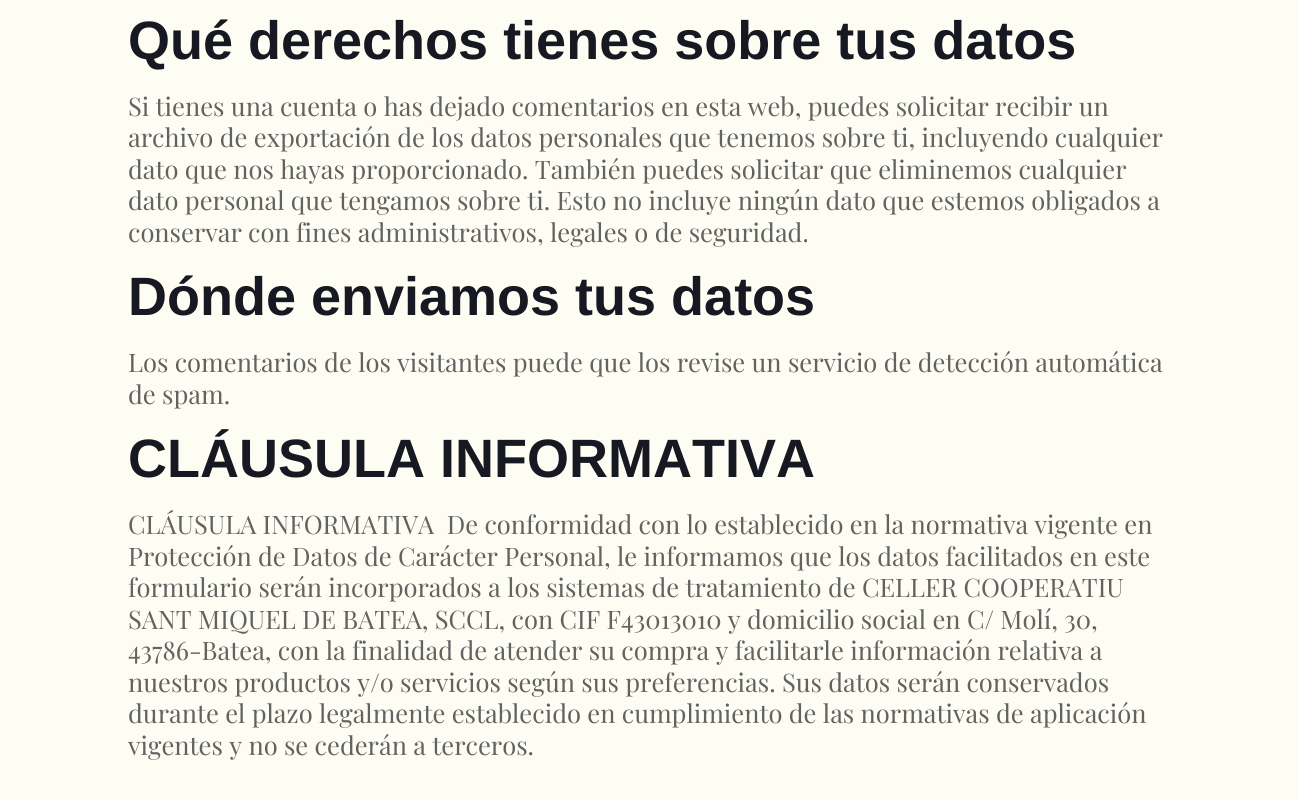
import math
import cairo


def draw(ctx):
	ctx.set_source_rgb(0.996, 0.992, 0.953)
	ctx.paint()
	ctx.select_font_face('Liberation Sans', cairo.FONT_SLANT_NORMAL, cairo.FONT_WEIGHT_BOLD)
	ctx.set_font_size(54)
	ctx.set_source_rgb(0.086, 0.098, 0.133)
	ctx.move_to(128, 59)
	ctx.show_text('Qué derechos tienes sobre tus datos')
	ctx.select_font_face('Playfair Display')
	ctx.set_font_size(25.5)
	ctx.set_source_rgb(0.384, 0.384, 0.384)
	for x, y, s in [
		(128, 116, 'Si tienes una cuenta o has dejado comentarios en esta web, puedes solicitar recibir un'),
		(128, 147, 'archivo de exportación de los datos personales que tenemos sobre ti, incluyendo cualquier'),
		(128, 179, 'dato que nos hayas proporcionado. También puedes solicitar que eliminemos cualquier'),
		(128, 210, 'dato personal que tengamos sobre ti. Esto no incluye ningún dato que estemos obligados a'),
		(128, 242, 'conservar con fines administrativos, legales o de seguridad.'),
	]:
		ctx.move_to(x, y)
		ctx.show_text(s)
	ctx.select_font_face('Liberation Sans', cairo.FONT_SLANT_NORMAL, cairo.FONT_WEIGHT_BOLD)
	ctx.set_font_size(54)
	ctx.set_source_rgb(0.086, 0.098, 0.133)
	ctx.move_to(128, 315)
	ctx.show_text('Dónde enviamos tus datos')
	ctx.select_font_face('Playfair Display')
	ctx.set_font_size(25.5)
	ctx.set_source_rgb(0.384, 0.384, 0.384)
	ctx.move_to(128, 372)
	ctx.show_text('Los comentarios de los visitantes puede que los revise un servicio de detección automática')
	ctx.move_to(128, 404)
	ctx.show_text('de spam.')
	ctx.select_font_face('Liberation Sans', cairo.FONT_SLANT_NORMAL, cairo.FONT_WEIGHT_BOLD)
	ctx.set_font_size(54)
	ctx.set_source_rgb(0.086, 0.098, 0.133)
	ctx.move_to(128, 477)
	ctx.show_text('CLÁUSULA INFORMATIVA')
	ctx.select_font_face('Playfair Display')
	ctx.set_font_size(25.5)
	ctx.set_source_rgb(0.384, 0.384, 0.384)
	for x, y, s in [
		(128, 534, 'CLÁUSULA INFORMATIVA  De conformidad con lo establecido en la normativa vigente en'),
		(128, 566, 'Protección de Datos de Carácter Personal, le informamos que los datos facilitados en este'),
		(128, 597, 'formulario serán incorporados a los sistemas de tratamiento de CELLER COOPERATIU'),
		(128, 629, 'SANT MIQUEL DE BATEA, SCCL, con CIF F43013010 y domicilio social en C/ Molí, 30,'),
		(128, 660, '43786-Batea, con la finalidad de atender su compra y facilitarle información relativa a'),
		(128, 692, 'nuestros productos y/o servicios según sus preferencias. Sus datos serán conservados'),
		(128, 723, 'durante el plazo legalmente establecido en cumplimiento de las normativas de aplicación'),
		(128, 755, 'vigentes y no se cederán a terceros.'),
	]:
		ctx.move_to(x, y)
		ctx.show_text(s)


surface = cairo.ImageSurface(cairo.FORMAT_RGB24, 1297, 800)
ctx = cairo.Context(surface)
options = cairo.FontOptions()
options.set_hint_metrics(cairo.HINT_METRICS_OFF)
options.set_hint_style(cairo.HINT_STYLE_NONE)
ctx.set_font_options(options)
ctx.set_miter_limit(4)
draw(ctx)
surface.write_to_png('image.png')
